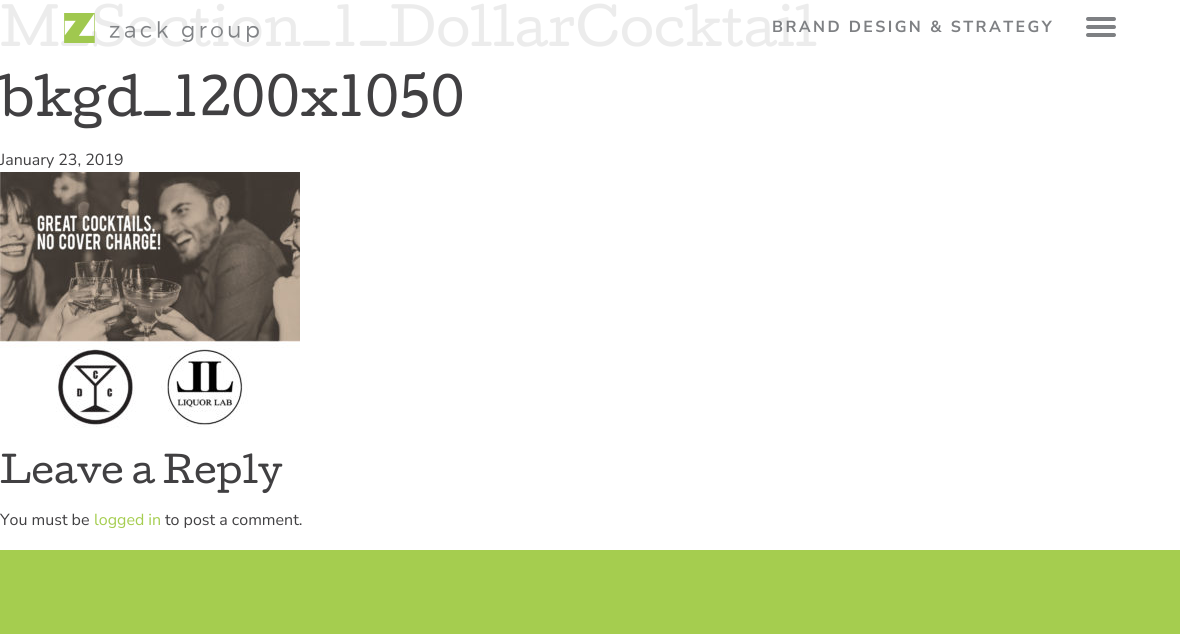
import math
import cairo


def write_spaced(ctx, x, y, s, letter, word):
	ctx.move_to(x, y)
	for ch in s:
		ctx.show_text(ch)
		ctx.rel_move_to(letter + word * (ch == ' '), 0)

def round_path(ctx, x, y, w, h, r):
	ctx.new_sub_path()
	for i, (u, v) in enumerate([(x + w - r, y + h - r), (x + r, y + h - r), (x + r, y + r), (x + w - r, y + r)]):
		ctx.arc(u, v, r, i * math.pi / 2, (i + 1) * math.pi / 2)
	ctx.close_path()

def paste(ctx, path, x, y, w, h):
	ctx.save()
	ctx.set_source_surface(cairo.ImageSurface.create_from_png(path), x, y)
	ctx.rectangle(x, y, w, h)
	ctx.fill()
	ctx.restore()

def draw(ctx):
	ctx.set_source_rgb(1, 1, 1)
	ctx.paint()
	ctx.select_font_face('Cutive')
	ctx.set_font_size(50)
	ctx.set_source_rgb(0.925, 0.925, 0.925)
	ctx.move_to(0, 46)
	ctx.show_text('M_Section_1_DollarCocktail')
	ctx.set_source_rgb(0.255, 0.251, 0.259)
	ctx.move_to(0, 116)
	ctx.show_text('bkgd_1200x1050')
	ctx.select_font_face('Nunito Sans')
	ctx.set_font_size(16)
	ctx.move_to(0, 165)
	ctx.show_text('January 23, 2019')
	paste(ctx, 'media/1.png', 0, 172, 300, 256)
	ctx.select_font_face('Cutive')
	ctx.set_font_size(35)
	ctx.move_to(0, 483)
	ctx.show_text('Leave a Reply')
	ctx.select_font_face('Nunito Sans')
	ctx.set_font_size(16)
	ctx.move_to(0, 525)
	ctx.show_text('You must be')
	ctx.set_source_rgb(0.647, 0.804, 0.31)
	ctx.move_to(94, 525)
	ctx.show_text('logged in')
	ctx.set_source_rgb(0.255, 0.251, 0.259)
	ctx.move_to(165, 525)
	ctx.show_text('to post a comment.')
	paste(ctx, 'media/2.png', 64, 13, 195, 30)
	ctx.select_font_face('Nunito Sans', cairo.FONT_SLANT_NORMAL, cairo.FONT_WEIGHT_BOLD)
	ctx.set_source_rgb(0.494, 0.502, 0.514)
	write_spaced(ctx, 772, 32, 'BRAND DESIGN & STRATEGY', 2.4, 0)
	round_path(ctx, 1086, 17, 30, 4, 2)
	ctx.fill()
	round_path(ctx, 1086, 25, 30, 4, 2)
	ctx.fill()
	round_path(ctx, 1086, 33, 30, 4, 2)
	ctx.fill()
	ctx.set_source_rgb(0.647, 0.804, 0.31)
	ctx.rectangle(0, 550, 1180, 84)
	ctx.fill()


surface = cairo.ImageSurface(cairo.FORMAT_RGB24, 1180, 634)
ctx = cairo.Context(surface)
options = cairo.FontOptions()
options.set_hint_metrics(cairo.HINT_METRICS_OFF)
options.set_hint_style(cairo.HINT_STYLE_NONE)
ctx.set_font_options(options)
ctx.set_miter_limit(4)
draw(ctx)
surface.write_to_png('image.png')
